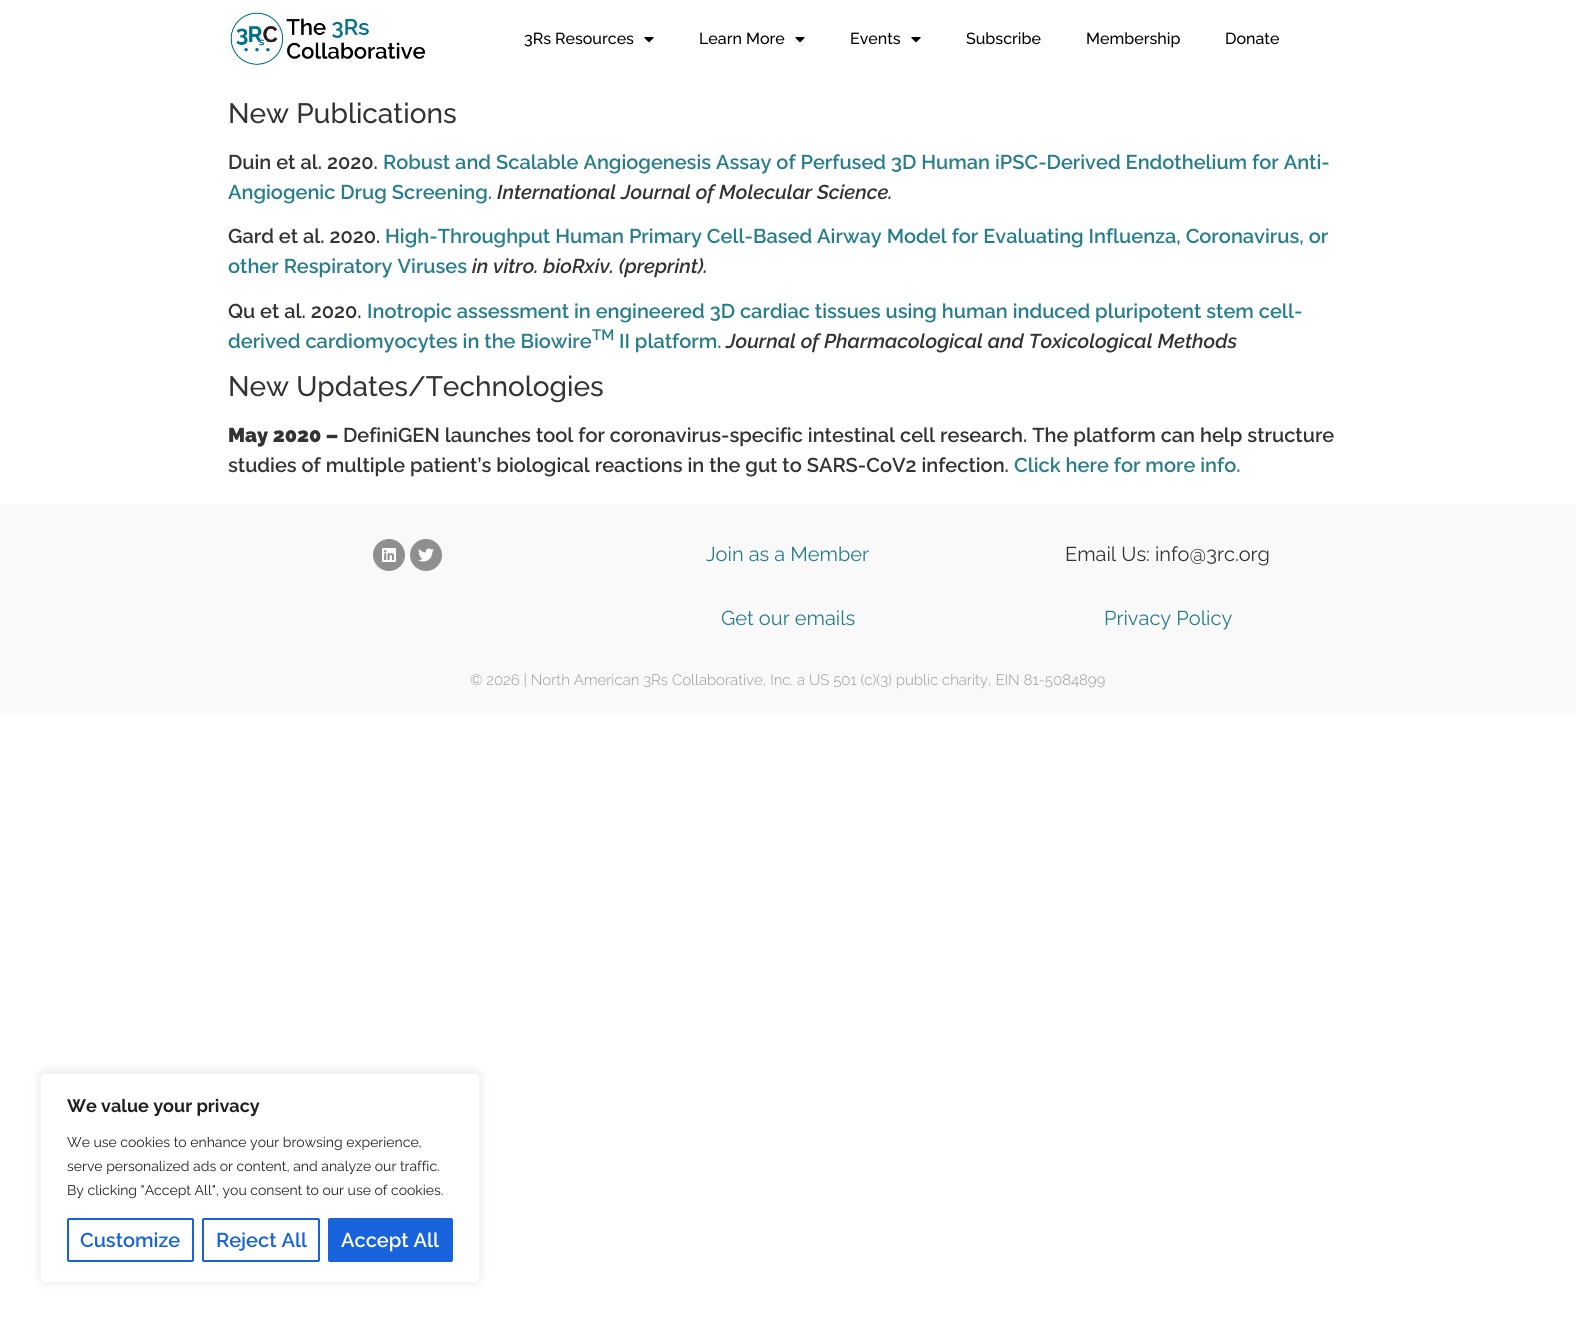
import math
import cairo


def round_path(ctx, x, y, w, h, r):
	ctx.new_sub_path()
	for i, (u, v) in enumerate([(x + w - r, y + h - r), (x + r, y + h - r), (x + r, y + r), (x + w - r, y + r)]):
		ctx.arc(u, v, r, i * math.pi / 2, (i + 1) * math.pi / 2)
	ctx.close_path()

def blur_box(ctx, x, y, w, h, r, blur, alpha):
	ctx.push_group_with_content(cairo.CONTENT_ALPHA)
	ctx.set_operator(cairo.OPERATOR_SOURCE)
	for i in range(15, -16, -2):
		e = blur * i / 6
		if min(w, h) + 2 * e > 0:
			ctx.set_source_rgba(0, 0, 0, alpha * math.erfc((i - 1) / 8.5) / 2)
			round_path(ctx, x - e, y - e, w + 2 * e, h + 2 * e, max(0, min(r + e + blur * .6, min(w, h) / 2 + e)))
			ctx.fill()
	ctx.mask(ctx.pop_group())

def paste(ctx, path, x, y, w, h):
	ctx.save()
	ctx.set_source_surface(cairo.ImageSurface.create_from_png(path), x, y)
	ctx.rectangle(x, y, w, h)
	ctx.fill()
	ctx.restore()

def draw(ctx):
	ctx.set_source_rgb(1, 1, 1)
	ctx.paint()
	paste(ctx, 'media/1.png', 230, 12, 196, 53)
	ctx.select_font_face('Raleway Medium')
	ctx.set_font_size(16)
	ctx.set_source_rgb(0, 0, 0)
	ctx.move_to(524, 44)
	ctx.show_text('3Rs Resources')
	paste(ctx, 'media/2.png', 644, 37, 10, 6)
	ctx.move_to(699, 44)
	ctx.show_text('Learn More')
	paste(ctx, 'media/2.png', 795, 37, 10, 6)
	ctx.move_to(850, 44)
	ctx.show_text('Events')
	paste(ctx, 'media/2.png', 911, 37, 10, 6)
	for x, y, s in [
		(966, 44, 'Subscribe'),
		(1086, 44, 'Membership'),
		(1225, 44, 'Donate'),
	]:
		ctx.move_to(x, y)
		ctx.show_text(s)
	ctx.set_font_size(28)
	ctx.set_source_rgb(0.2, 0.2, 0.2)
	ctx.move_to(228, 123)
	ctx.show_text('New Publications')
	ctx.select_font_face('Raleway SemiBold')
	ctx.set_font_size(20)
	ctx.move_to(228, 169)
	ctx.show_text('Duin et al. 2020.')
	ctx.set_source_rgb(0.149, 0.49, 0.545)
	ctx.move_to(383, 169)
	ctx.show_text('Robust and Scalable Angiogenesis Assay of Perfused 3D Human iPSC-Derived Endothelium for Anti-')
	ctx.move_to(228, 199)
	ctx.show_text('Angiogenic Drug Screening.')
	ctx.select_font_face('Raleway SemiBold', cairo.FONT_SLANT_ITALIC)
	ctx.set_source_rgb(0.2, 0.2, 0.2)
	ctx.move_to(497, 199)
	ctx.show_text('International Journal of Molecular Science.')
	ctx.select_font_face('Raleway SemiBold')
	ctx.move_to(228, 243)
	ctx.show_text('Gard et al. 2020.')
	ctx.set_source_rgb(0.149, 0.49, 0.545)
	ctx.move_to(385, 243)
	ctx.show_text('High-Throughput Human Primary Cell-Based Airway Model for Evaluating Influenza, Coronavirus, or')
	ctx.move_to(228, 273)
	ctx.show_text('other Respiratory Viruses')
	ctx.select_font_face('Raleway SemiBold', cairo.FONT_SLANT_ITALIC)
	ctx.set_source_rgb(0.2, 0.2, 0.2)
	ctx.move_to(472, 273)
	ctx.show_text('in vitro. bioRxiv. (preprint).')
	ctx.select_font_face('Raleway SemiBold')
	ctx.move_to(228, 318)
	ctx.show_text('Qu et al. 2020.')
	ctx.set_source_rgb(0.149, 0.49, 0.545)
	ctx.move_to(367, 318)
	ctx.show_text('Inotropic assessment in engineered 3D cardiac tissues using human induced pluripotent stem cell-')
	ctx.move_to(228, 348)
	ctx.show_text('derived cardiomyocytes in the Biowire')
	ctx.set_font_size(15)
	ctx.move_to(592, 340)
	ctx.show_text('TM')
	ctx.set_font_size(20)
	ctx.move_to(619, 348)
	ctx.show_text('II platform.')
	ctx.select_font_face('Raleway SemiBold', cairo.FONT_SLANT_ITALIC)
	ctx.set_source_rgb(0.2, 0.2, 0.2)
	ctx.move_to(726, 348)
	ctx.show_text('Journal of Pharmacological and Toxicological Methods')
	ctx.select_font_face('Raleway Medium')
	ctx.set_font_size(28)
	ctx.move_to(228, 396)
	ctx.show_text('New Updates/Technologies')
	ctx.select_font_face('Raleway Black')
	ctx.set_font_size(20)
	ctx.move_to(228, 442)
	ctx.show_text('May 2020 –')
	ctx.select_font_face('Raleway SemiBold')
	ctx.move_to(343, 442)
	ctx.show_text('DefiniGEN launches tool for coronavirus-specific intestinal cell research. The platform can help structure')
	ctx.move_to(228, 472)
	ctx.show_text('studies of multiple patient’s biological reactions in the gut to SARS-CoV2 infection.')
	ctx.set_source_rgb(0.149, 0.49, 0.545)
	ctx.move_to(1014, 472)
	ctx.show_text('Click here for more info.')
	ctx.set_source_rgb(0.973, 0.973, 0.973)
	ctx.rectangle(0, 504, 1576, 209)
	ctx.fill()
	ctx.set_source_rgb(0.561, 0.561, 0.561)
	ctx.arc(389, 555, 16, 0, 2 * math.pi)
	ctx.fill()
	paste(ctx, 'media/3.png', 382, 548, 14, 14)
	ctx.arc(426, 555, 16, 0, 2 * math.pi)
	ctx.fill()
	paste(ctx, 'media/4.png', 418, 548, 16, 14)
	ctx.select_font_face('Raleway')
	ctx.set_source_rgb(0.149, 0.49, 0.545)
	ctx.move_to(706, 561)
	ctx.show_text('Join as a Member')
	ctx.move_to(721, 625)
	ctx.show_text('Get our emails')
	ctx.set_source_rgb(0.2, 0.2, 0.2)
	ctx.move_to(1065, 561)
	ctx.show_text('Email Us: info@3rc.org')
	ctx.set_source_rgb(0.149, 0.49, 0.545)
	ctx.move_to(1104, 625)
	ctx.show_text('Privacy Policy')
	ctx.select_font_face('Raleway Light')
	ctx.set_font_size(15)
	ctx.set_source_rgb(0.592, 0.592, 0.592)
	ctx.move_to(470, 685)
	ctx.show_text('© 2026 | North American 3Rs Collaborative, Inc. a US 501 (c)(3) public charity, EIN 81-5084899')
	ctx.set_source_rgb(0.675, 0.671, 0.671)
	blur_box(ctx, 40, 1072, 440, 210, 6, 5, 0.3)
	ctx.set_source_rgb(1, 1, 1)
	round_path(ctx, 40.5, 1073.5, 439, 209, 5.5)
	ctx.fill_preserve()
	ctx.set_source_rgb(0.957, 0.957, 0.957)
	ctx.set_line_width(1)
	ctx.stroke()
	ctx.select_font_face('Raleway', cairo.FONT_SLANT_NORMAL, cairo.FONT_WEIGHT_BOLD)
	ctx.set_font_size(18)
	ctx.set_source_rgb(0.129, 0.129, 0.129)
	ctx.move_to(67, 1112)
	ctx.show_text('We value your privacy')
	ctx.select_font_face('Raleway')
	ctx.set_font_size(14)
	for x, y, s in [
		(67, 1147, 'We use cookies to enhance your browsing experience,'),
		(67, 1171, 'serve personalized ads or content, and analyze our traffic.'),
		(67, 1195, 'By clicking "Accept All", you consent to our use of cookies.'),
	]:
		ctx.move_to(x, y)
		ctx.show_text(s)
	round_path(ctx, 68, 1219, 125, 42, 1)
	ctx.set_source_rgb(0.094, 0.388, 0.863)
	ctx.set_line_width(2)
	ctx.stroke()
	ctx.select_font_face('Raleway SemiBold')
	ctx.set_font_size(20)
	ctx.move_to(80, 1247)
	ctx.show_text('Customize')
	round_path(ctx, 203, 1219, 116, 42, 1)
	ctx.stroke()
	ctx.move_to(216, 1247)
	ctx.show_text('Reject All')
	round_path(ctx, 329, 1219, 123, 42, 1)
	ctx.fill_preserve()
	ctx.stroke()
	ctx.set_source_rgb(1, 1, 1)
	ctx.move_to(341, 1247)
	ctx.show_text('Accept All')


surface = cairo.ImageSurface(cairo.FORMAT_RGB24, 1576, 1323)
ctx = cairo.Context(surface)
options = cairo.FontOptions()
options.set_hint_metrics(cairo.HINT_METRICS_OFF)
options.set_hint_style(cairo.HINT_STYLE_NONE)
ctx.set_font_options(options)
ctx.set_miter_limit(4)
draw(ctx)
surface.write_to_png('image.png')
